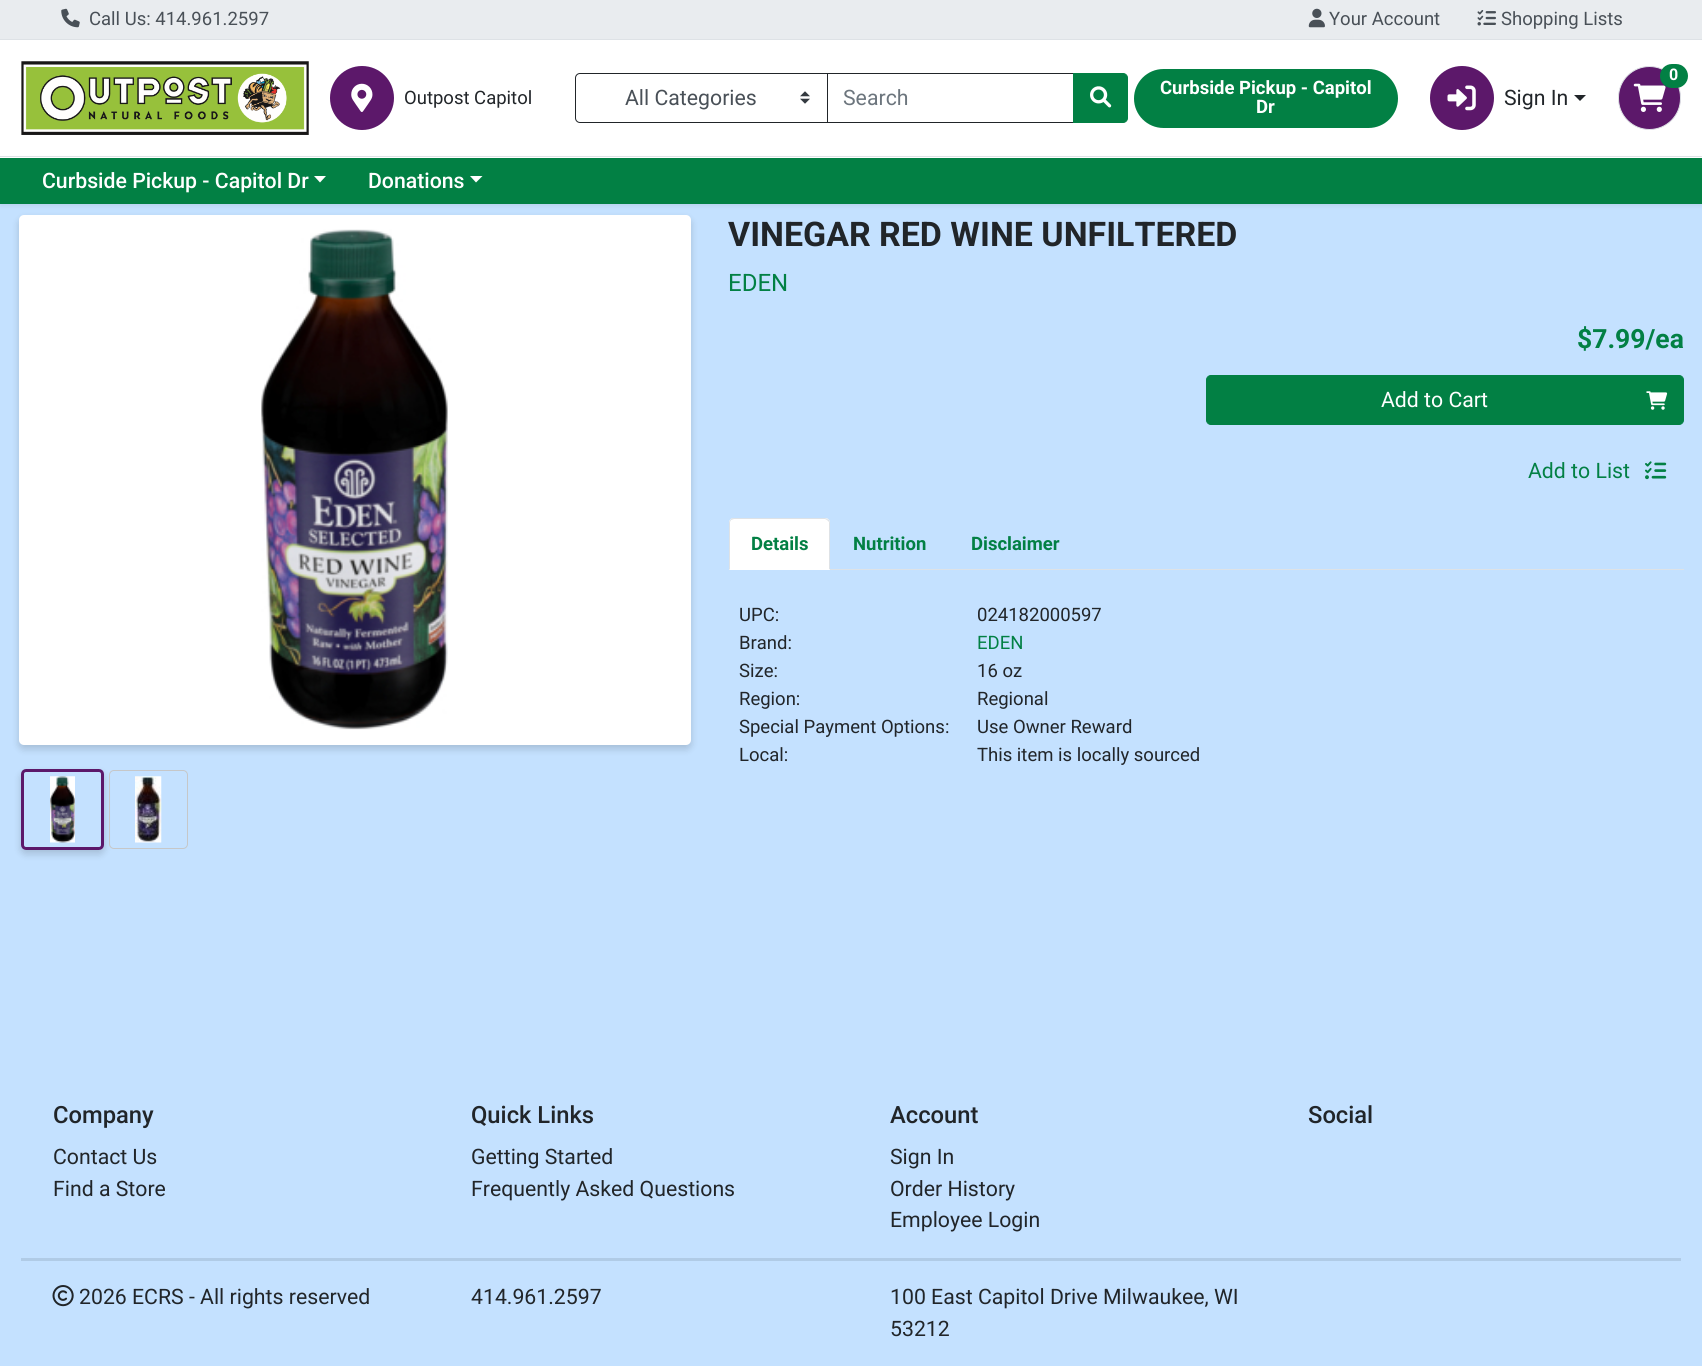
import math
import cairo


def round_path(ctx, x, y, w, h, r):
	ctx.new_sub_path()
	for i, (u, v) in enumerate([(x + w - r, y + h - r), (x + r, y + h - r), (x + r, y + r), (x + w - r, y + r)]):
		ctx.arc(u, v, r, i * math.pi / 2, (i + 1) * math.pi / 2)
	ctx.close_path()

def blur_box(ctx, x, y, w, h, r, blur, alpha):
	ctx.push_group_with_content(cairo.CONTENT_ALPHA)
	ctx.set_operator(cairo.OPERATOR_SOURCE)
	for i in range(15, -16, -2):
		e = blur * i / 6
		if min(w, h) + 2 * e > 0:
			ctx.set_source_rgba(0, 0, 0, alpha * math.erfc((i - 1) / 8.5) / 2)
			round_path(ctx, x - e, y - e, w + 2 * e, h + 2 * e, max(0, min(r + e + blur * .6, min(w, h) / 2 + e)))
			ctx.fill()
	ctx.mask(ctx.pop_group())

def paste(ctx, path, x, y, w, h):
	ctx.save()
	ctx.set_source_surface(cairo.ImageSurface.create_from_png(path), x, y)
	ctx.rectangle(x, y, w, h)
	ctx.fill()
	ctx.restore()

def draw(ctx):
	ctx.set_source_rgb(0.769, 0.882, 1)
	ctx.paint()
	ctx.set_source_rgb(0, 0, 0)
	blur_box(ctx, 0, 3, 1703, 203, 0, 2.5, 0.07)
	ctx.set_source_rgb(1, 1, 1)
	ctx.rectangle(0, 40, 1702, 118)
	ctx.fill()
	ctx.set_source_rgb(0.914, 0.925, 0.937)
	ctx.rectangle(0, 0, 1702, 39)
	ctx.fill()
	ctx.set_source_rgb(0.871, 0.886, 0.902)
	ctx.rectangle(0, 39, 1702, 1)
	ctx.fill()
	paste(ctx, 'media/1.png', 61, 8, 19, 20)
	ctx.select_font_face('Roboto')
	ctx.set_font_size(18.5)
	ctx.set_source_rgb(0.286, 0.314, 0.341)
	ctx.move_to(89, 25)
	ctx.show_text('Call Us: 414.961.2597')
	paste(ctx, 'media/2.png', 1308, 8, 17, 20)
	ctx.move_to(1329, 25)
	ctx.show_text('Your Account')
	paste(ctx, 'media/3.png', 1477, 10, 19, 16)
	ctx.move_to(1501, 25)
	ctx.show_text('Shopping Lists')
	ctx.set_source_rgb(0.871, 0.886, 0.902)
	ctx.rectangle(0, 156, 1702, 1)
	ctx.fill()
	paste(ctx, 'media/4.png', 21, 61, 288, 74)
	ctx.set_source_rgb(0.361, 0.094, 0.416)
	ctx.arc(362, 98, 32, 0, 2 * math.pi)
	ctx.fill()
	paste(ctx, 'media/5.png', 351, 83, 22, 29)
	ctx.set_source_rgb(0.129, 0.145, 0.161)
	ctx.move_to(404, 104)
	ctx.show_text('Outpost Capitol')
	ctx.rectangle(826.5, 73.5, 247, 49)
	ctx.set_line_width(1)
	ctx.stroke()
	ctx.set_source_rgb(1, 1, 1)
	ctx.new_path()
	ctx.move_to(580, 73)
	ctx.line_to(828, 73)
	ctx.line_to(828, 123)
	ctx.line_to(580, 123)
	ctx.curve_to(577, 123, 575, 121, 575, 118)
	ctx.line_to(575, 78)
	ctx.curve_to(575, 75, 577, 73, 580, 73)
	ctx.close_path()
	ctx.fill()
	paste(ctx, 'media/6.png', 800, 91, 10, 13)
	ctx.new_path()
	ctx.move_to(580, 73.5)
	ctx.line_to(827.5, 73.5)
	ctx.line_to(827.5, 122.5)
	ctx.line_to(580, 122.5)
	ctx.curve_to(577.5, 122.5, 575.5, 120.5, 575.5, 118)
	ctx.line_to(575.5, 78)
	ctx.curve_to(575.5, 75.5, 577.5, 73.5, 580, 73.5)
	ctx.close_path()
	ctx.set_source_rgb(0.129, 0.145, 0.161)
	ctx.stroke()
	ctx.set_font_size(21.25)
	ctx.set_source_rgb(0.286, 0.314, 0.341)
	ctx.move_to(625, 105)
	ctx.show_text('All Categories')
	ctx.set_source_rgb(0.424, 0.459, 0.49)
	ctx.move_to(843, 105)
	ctx.show_text('Search')
	ctx.set_source_rgb(0.008, 0.502, 0.267)
	ctx.new_path()
	ctx.move_to(1073.5, 73.5)
	ctx.line_to(1123, 73.5)
	ctx.curve_to(1125.5, 73.5, 1127.5, 75.5, 1127.5, 78)
	ctx.line_to(1127.5, 118)
	ctx.curve_to(1127.5, 120.5, 1125.5, 122.5, 1123, 122.5)
	ctx.line_to(1073.5, 122.5)
	ctx.close_path()
	ctx.fill_preserve()
	ctx.stroke()
	paste(ctx, 'media/7.png', 1090, 86, 22, 22)
	round_path(ctx, 1134, 69, 264, 59, 29.5)
	ctx.fill()
	ctx.select_font_face('Roboto', cairo.FONT_SLANT_NORMAL, cairo.FONT_WEIGHT_BOLD)
	ctx.set_font_size(18.5)
	ctx.set_source_rgb(1, 1, 1)
	ctx.move_to(1160, 94)
	ctx.show_text('Curbside Pickup - Capitol')
	ctx.move_to(1256, 113)
	ctx.show_text('Dr')
	ctx.set_source_rgb(0.361, 0.094, 0.416)
	round_path(ctx, 1618.5, 66.5, 62, 63, 31)
	ctx.fill_preserve()
	ctx.set_source_rgb(0.871, 0.886, 0.902)
	ctx.stroke()
	paste(ctx, 'media/8.png', 1633, 83, 33, 29)
	ctx.set_source_rgb(0.008, 0.502, 0.267)
	round_path(ctx, 1660, 64, 28, 24, 12)
	ctx.fill()
	ctx.set_font_size(16)
	ctx.set_source_rgb(1, 1, 1)
	ctx.move_to(1669, 80)
	ctx.show_text('0')
	ctx.set_source_rgb(0.361, 0.094, 0.416)
	ctx.new_path()
	ctx.arc(1462, 98, 32, 0, 2 * math.pi)
	ctx.fill()
	paste(ctx, 'media/9.png', 1447, 85, 29, 26)
	ctx.select_font_face('Roboto')
	ctx.set_font_size(21.25)
	ctx.set_source_rgb(0.129, 0.145, 0.161)
	ctx.move_to(1504, 105)
	ctx.show_text('Sign In')
	ctx.new_path()
	ctx.move_to(1574, 95)
	ctx.line_to(1586, 95)
	ctx.line_to(1580, 101)
	ctx.close_path()
	ctx.fill()
	ctx.set_source_rgb(0.008, 0.502, 0.267)
	ctx.rectangle(0, 158, 1702, 46)
	ctx.fill()
	ctx.select_font_face('Roboto Medium')
	ctx.set_source_rgb(1, 1, 1)
	ctx.move_to(42, 188)
	ctx.show_text('Curbside Pickup - Capitol Dr')
	ctx.new_path()
	ctx.move_to(314, 176)
	ctx.line_to(326, 176)
	ctx.line_to(320, 182.5)
	ctx.close_path()
	ctx.fill()
	ctx.move_to(368, 188)
	ctx.show_text('Donations')
	ctx.new_path()
	ctx.move_to(470, 176)
	ctx.line_to(482.5, 176)
	ctx.line_to(476, 182.5)
	ctx.close_path()
	ctx.fill()
	ctx.set_source_rgb(0, 0, 0)
	blur_box(ctx, 19, 219, 672, 530, 5, 4, 0.16)
	ctx.set_source_rgb(1, 1, 1)
	round_path(ctx, 19, 215, 672, 530, 5)
	ctx.fill()
	paste(ctx, 'media/10.png', 261, 229, 187, 501)
	ctx.save()
	ctx.set_fill_rule(cairo.FILL_RULE_EVEN_ODD)
	ctx.new_path()
	ctx.move_to(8, 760)
	ctx.line_to(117, 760)
	ctx.line_to(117, 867)
	ctx.line_to(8, 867)
	ctx.close_path()
	ctx.move_to(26, 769)
	ctx.line_to(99, 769)
	ctx.curve_to(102, 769, 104, 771, 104, 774)
	ctx.line_to(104, 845)
	ctx.curve_to(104, 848, 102, 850, 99, 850)
	ctx.line_to(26, 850)
	ctx.curve_to(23, 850, 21, 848, 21, 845)
	ctx.line_to(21, 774)
	ctx.curve_to(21, 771, 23, 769, 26, 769)
	ctx.close_path()
	ctx.clip()
	ctx.set_source_rgb(0, 0, 0)
	blur_box(ctx, 21, 773, 83, 81, 5, 4, 0.16)
	ctx.restore()
	round_path(ctx, 22.5, 770.5, 80, 78, 3.5)
	ctx.set_source_rgb(0.361, 0.094, 0.416)
	ctx.set_line_width(3)
	ctx.stroke()
	paste(ctx, 'media/11.png', 50, 776, 25, 67)
	round_path(ctx, 109.5, 770.5, 78, 78, 4.5)
	ctx.set_source_rgb(0.776, 0.78, 0.784)
	ctx.set_line_width(1)
	ctx.stroke()
	paste(ctx, 'media/12.png', 135, 776, 27, 67)
	ctx.select_font_face('Roboto', cairo.FONT_SLANT_NORMAL, cairo.FONT_WEIGHT_BOLD)
	ctx.set_font_size(33.9)
	ctx.set_source_rgb(0.129, 0.145, 0.161)
	ctx.move_to(728, 246)
	ctx.show_text('VINEGAR RED WINE UNFILTERED')
	ctx.select_font_face('Roboto')
	ctx.set_font_size(24)
	ctx.set_source_rgb(0.008, 0.502, 0.267)
	ctx.move_to(728, 291)
	ctx.show_text('EDEN')
	ctx.select_font_face('Roboto', cairo.FONT_SLANT_NORMAL, cairo.FONT_WEIGHT_BOLD)
	ctx.set_font_size(26.5)
	ctx.move_to(1577, 348)
	ctx.show_text('$7.99/ea')
	round_path(ctx, 1206.5, 375.5, 477, 49, 4.5)
	ctx.fill_preserve()
	ctx.stroke()
	ctx.select_font_face('Roboto')
	ctx.set_font_size(21.25)
	ctx.set_source_rgb(1, 1, 1)
	ctx.move_to(1381, 407)
	ctx.show_text('Add to Cart')
	paste(ctx, 'media/13.png', 1646, 391, 22, 19)
	ctx.set_source_rgb(0.008, 0.502, 0.267)
	ctx.move_to(1528, 478)
	ctx.show_text('Add to List')
	paste(ctx, 'media/14.png', 1645, 461, 22, 19)
	ctx.set_source_rgb(0.871, 0.886, 0.902)
	ctx.rectangle(830, 569, 854, 1)
	ctx.fill()
	ctx.set_source_rgb(1, 1, 1)
	ctx.new_path()
	ctx.move_to(734, 518)
	ctx.line_to(825, 518)
	ctx.curve_to(828, 518, 830, 520, 830, 523)
	ctx.line_to(830, 570)
	ctx.line_to(729, 570)
	ctx.line_to(729, 523)
	ctx.curve_to(729, 520, 731, 518, 734, 518)
	ctx.close_path()
	ctx.fill()
	ctx.set_source_rgb(0.871, 0.886, 0.902)
	ctx.new_path()
	ctx.move_to(734, 518)
	ctx.curve_to(733, 518, 731, 518, 731, 519)
	ctx.line_to(731, 520)
	ctx.line_to(734, 519)
	ctx.line_to(825, 519)
	ctx.line_to(827, 520)
	ctx.line_to(828, 519)
	ctx.line_to(825, 518)
	ctx.close_path()
	ctx.fill()
	ctx.new_path()
	ctx.move_to(828, 519)
	ctx.curve_to(829, 520, 830, 521, 830, 523)
	ctx.line_to(830, 570)
	ctx.line_to(829, 569)
	ctx.line_to(829, 522)
	ctx.line_to(827, 520)
	ctx.close_path()
	ctx.fill()
	ctx.set_source_rgb(1, 1, 1)
	ctx.new_path()
	ctx.move_to(830, 570)
	ctx.line_to(829, 569)
	ctx.line_to(730, 569)
	ctx.line_to(729, 570)
	ctx.close_path()
	ctx.fill()
	ctx.set_source_rgb(0.871, 0.886, 0.902)
	ctx.new_path()
	ctx.move_to(731, 519)
	ctx.curve_to(730, 520, 729, 521, 729, 523)
	ctx.line_to(729, 570)
	ctx.line_to(730, 569)
	ctx.line_to(730, 522)
	ctx.line_to(731, 520)
	ctx.close_path()
	ctx.fill()
	ctx.select_font_face('Roboto', cairo.FONT_SLANT_NORMAL, cairo.FONT_WEIGHT_BOLD)
	ctx.set_font_size(18.5)
	ctx.set_source_rgb(0.008, 0.502, 0.267)
	for x, y, s in [
		(751, 550, 'Details'),
		(853, 550, 'Nutrition'),
		(971, 550, 'Disclaimer'),
	]:
		ctx.move_to(x, y)
		ctx.show_text(s)
	ctx.select_font_face('Roboto')
	ctx.set_source_rgb(0.129, 0.145, 0.161)
	for x, y, s in [
		(739, 621, 'UPC:'),
		(977, 621, '024182000597'),
		(739, 649, 'Brand:'),
	]:
		ctx.move_to(x, y)
		ctx.show_text(s)
	ctx.set_source_rgb(0.008, 0.502, 0.267)
	ctx.move_to(977, 649)
	ctx.show_text('EDEN')
	ctx.set_source_rgb(0.129, 0.145, 0.161)
	for x, y, s in [
		(739, 677, 'Size:'),
		(977, 677, '16 oz'),
		(739, 705, 'Region:'),
		(977, 705, 'Regional'),
		(739, 733, 'Special Payment Options:'),
		(977, 733, 'Use Owner Reward'),
		(739, 761, 'Local:'),
		(977, 761, 'This item is locally sourced'),
	]:
		ctx.move_to(x, y)
		ctx.show_text(s)
	ctx.select_font_face('Roboto Medium')
	ctx.set_font_size(23.75)
	ctx.move_to(53, 1123)
	ctx.show_text('Company')
	ctx.select_font_face('Roboto')
	ctx.set_font_size(21.25)
	ctx.move_to(53, 1164)
	ctx.show_text('Contact Us')
	ctx.move_to(53, 1196)
	ctx.show_text('Find a Store')
	ctx.select_font_face('Roboto Medium')
	ctx.set_font_size(23.75)
	ctx.move_to(471, 1123)
	ctx.show_text('Quick Links')
	ctx.select_font_face('Roboto')
	ctx.set_font_size(21.25)
	ctx.move_to(471, 1164)
	ctx.show_text('Getting Started')
	ctx.move_to(471, 1196)
	ctx.show_text('Frequently Asked Questions')
	ctx.select_font_face('Roboto Medium')
	ctx.set_font_size(23.75)
	ctx.move_to(890, 1123)
	ctx.show_text('Account')
	ctx.select_font_face('Roboto')
	ctx.set_font_size(21.25)
	for x, y, s in [
		(890, 1164, 'Sign In'),
		(890, 1196, 'Order History'),
		(890, 1227, 'Employee Login'),
	]:
		ctx.move_to(x, y)
		ctx.show_text(s)
	ctx.select_font_face('Roboto Medium')
	ctx.set_font_size(23.75)
	ctx.move_to(1308, 1123)
	ctx.show_text('Social')
	ctx.set_source_rgb(0.69, 0.796, 0.902)
	ctx.rectangle(21, 1258, 1660, 3)
	ctx.fill()
	paste(ctx, 'media/15.png', 52, 1285, 22, 22)
	ctx.select_font_face('Roboto')
	ctx.set_font_size(21.25)
	ctx.set_source_rgb(0.129, 0.145, 0.161)
	for x, y, s in [
		(79, 1304, '2026 ECRS - All rights reserved'),
		(471, 1304, '414.961.2597'),
		(890, 1304, '100 East Capitol Drive Milwaukee, WI'),
		(890, 1336, '53212'),
	]:
		ctx.move_to(x, y)
		ctx.show_text(s)


surface = cairo.ImageSurface(cairo.FORMAT_RGB24, 1702, 1366)
ctx = cairo.Context(surface)
options = cairo.FontOptions()
options.set_hint_metrics(cairo.HINT_METRICS_OFF)
options.set_hint_style(cairo.HINT_STYLE_NONE)
ctx.set_font_options(options)
ctx.set_miter_limit(4)
draw(ctx)
surface.write_to_png('image.png')
